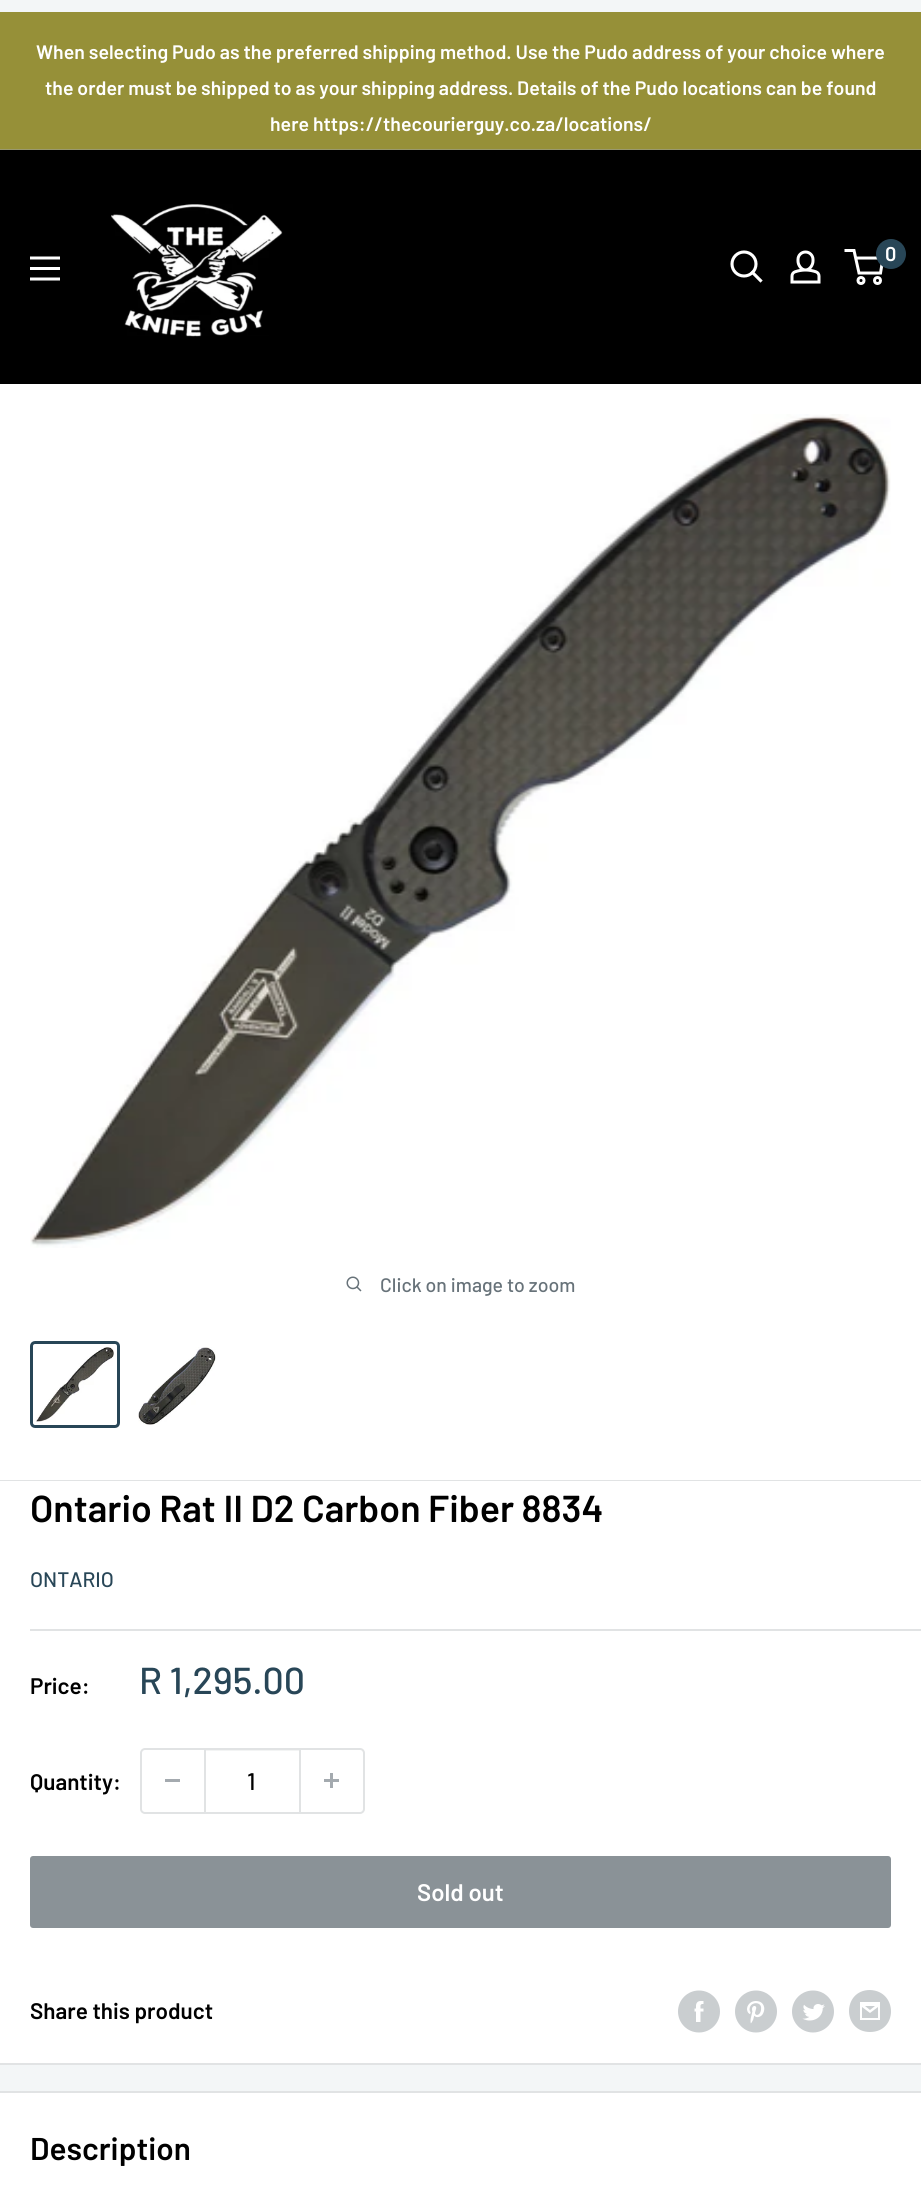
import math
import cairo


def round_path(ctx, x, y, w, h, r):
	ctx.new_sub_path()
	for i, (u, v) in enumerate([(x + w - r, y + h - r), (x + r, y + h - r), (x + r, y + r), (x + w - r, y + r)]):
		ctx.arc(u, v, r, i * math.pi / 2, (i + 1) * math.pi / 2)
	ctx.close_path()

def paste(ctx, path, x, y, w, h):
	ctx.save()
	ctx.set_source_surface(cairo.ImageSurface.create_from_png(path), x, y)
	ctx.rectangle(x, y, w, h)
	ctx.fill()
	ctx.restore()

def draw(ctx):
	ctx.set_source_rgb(0.953, 0.961, 0.965)
	ctx.paint()
	ctx.set_source_rgb(0.588, 0.565, 0.22)
	ctx.rectangle(0, 12, 921, 137)
	ctx.fill()
	ctx.set_source_rgb(0.604, 0.6, 0.435)
	ctx.rectangle(0, 149, 921, 1)
	ctx.fill()
	ctx.select_font_face('Barlow SemiBold')
	ctx.set_font_size(19.5)
	ctx.set_source_rgb(1, 1, 1)
	for x, y, s in [
		(36, 59, 'When selecting Pudo as the preferred shipping method. Use the Pudo address of your choice where'),
		(45, 95, 'the order must be shipped to as your shipping address. Details of the Pudo locations can be found'),
		(270, 131, 'here https://thecourierguy.co.za/locations/'),
	]:
		ctx.move_to(x, y)
		ctx.show_text(s)
	ctx.set_source_rgb(0, 0, 0)
	ctx.rectangle(0, 150, 921, 234)
	ctx.fill()
	paste(ctx, 'media/1.png', 111, 204, 172, 133)
	ctx.new_path()
	ctx.move_to(760.5, 280.5)
	ctx.line_to(752.5, 272.5)
	ctx.set_source_rgb(1, 1, 1)
	ctx.set_line_width(3.1)
	ctx.set_line_cap(cairo.LINE_CAP_SQUARE)
	ctx.stroke()
	ctx.arc(744, 264, 12, 0, 2 * math.pi)
	ctx.set_line_cap(cairo.LINE_CAP_BUTT)
	ctx.stroke()
	paste(ctx, 'media/2.png', 790, 250, 31, 34)
	ctx.arc(861, 280.5, 3, 0, 2 * math.pi)
	ctx.set_line_width(3)
	ctx.stroke()
	ctx.arc(877.5, 280.5, 3, 0, 2 * math.pi)
	ctx.stroke()
	ctx.new_path()
	ctx.move_to(855.5, 258)
	ctx.line_to(883, 258)
	ctx.line_to(880.5, 273)
	ctx.line_to(859, 273)
	ctx.line_to(854, 250.5)
	ctx.line_to(844.5, 250.5)
	ctx.stroke()
	ctx.set_source_rgb(0.157, 0.275, 0.341)
	ctx.arc(891, 254, 15, 0, 2 * math.pi)
	ctx.fill()
	ctx.set_font_size(20)
	ctx.set_source_rgb(1, 1, 1)
	ctx.move_to(885, 261)
	ctx.show_text('0')
	paste(ctx, 'media/3.png', 30, 256, 30, 25)
	ctx.rectangle(0, 384, 921, 1096)
	ctx.fill()
	ctx.set_source_rgb(0.882, 0.89, 0.894)
	ctx.rectangle(0, 1480, 921, 1)
	ctx.fill()
	paste(ctx, 'media/4.png', 30, 414, 861, 834)
	paste(ctx, 'media/5.png', 346, 1276, 16, 16)
	ctx.select_font_face('Barlow Medium')
	ctx.set_font_size(19.5)
	ctx.set_source_rgb(0.404, 0.447, 0.475)
	ctx.move_to(380, 1292)
	ctx.show_text('Click on image to zoom')
	round_path(ctx, 31.5, 1342.5, 87, 84, 3.5)
	ctx.set_source_rgb(0.157, 0.275, 0.341)
	ctx.stroke()
	paste(ctx, 'media/6.png', 36, 1347, 78, 75)
	paste(ctx, 'media/7.png', 138, 1347, 78, 78)
	ctx.set_source_rgb(1, 1, 1)
	ctx.rectangle(0, 1481, 921, 582)
	ctx.fill()
	ctx.set_source_rgb(0.882, 0.89, 0.894)
	ctx.rectangle(0, 2063, 921, 2)
	ctx.fill()
	ctx.select_font_face('Barlow SemiBold')
	ctx.set_font_size(37.5)
	ctx.set_source_rgb(0, 0, 0)
	ctx.move_to(30, 1522)
	ctx.show_text('Ontario Rat II D2 Carbon Fiber 8834')
	ctx.select_font_face('Barlow Medium')
	ctx.set_font_size(21)
	ctx.set_source_rgb(0.157, 0.275, 0.341)
	ctx.move_to(30, 1587)
	ctx.show_text('ONTARIO')
	ctx.set_source_rgb(0.882, 0.89, 0.894)
	ctx.rectangle(30, 1629, 891, 2)
	ctx.fill()
	ctx.select_font_face('Barlow SemiBold')
	ctx.set_font_size(22.5)
	ctx.set_source_rgb(0, 0, 0)
	ctx.move_to(30, 1694)
	ctx.show_text('Price:')
	ctx.select_font_face('Barlow Medium')
	ctx.set_font_size(37.5)
	ctx.set_source_rgb(0.157, 0.275, 0.341)
	ctx.move_to(139, 1694)
	ctx.show_text('R 1,295.00')
	ctx.select_font_face('Barlow SemiBold')
	ctx.set_font_size(22.5)
	ctx.set_source_rgb(0, 0, 0)
	ctx.move_to(30, 1790)
	ctx.show_text('Quantity:')
	round_path(ctx, 141, 1749, 223, 64, 4)
	ctx.set_source_rgb(0.882, 0.89, 0.894)
	ctx.set_line_width(2)
	ctx.stroke()
	ctx.set_source_rgb(0.643, 0.667, 0.686)
	ctx.rectangle(165, 1779, 15, 3)
	ctx.fill()
	ctx.set_source_rgba(0.882, 0.89, 0.894, 0.4)
	ctx.rectangle(206, 1750, 93, 1)
	ctx.fill()
	ctx.set_source_rgb(0.882, 0.89, 0.894)
	ctx.rectangle(299, 1749, 2, 63)
	ctx.rectangle(204, 1749, 2, 63)
	ctx.fill()
	ctx.select_font_face('Barlow Medium')
	ctx.set_font_size(24)
	ctx.set_source_rgb(0, 0, 0)
	ctx.move_to(247, 1790)
	ctx.show_text('1')
	paste(ctx, 'media/8.png', 324, 1773, 15, 15)
	ctx.set_source_rgb(0.541, 0.573, 0.592)
	round_path(ctx, 31, 1857, 859, 70, 2)
	ctx.fill_preserve()
	ctx.stroke()
	ctx.select_font_face('Barlow SemiBold')
	ctx.set_source_rgb(1, 1, 1)
	ctx.move_to(417, 1901)
	ctx.show_text('Sold out')
	ctx.set_font_size(22.5)
	ctx.set_source_rgb(0, 0, 0)
	ctx.move_to(30, 2019)
	ctx.show_text('Share this product')
	paste(ctx, 'media/9.png', 678, 1990, 42, 43)
	paste(ctx, 'media/10.png', 735, 1990, 42, 43)
	paste(ctx, 'media/11.png', 792, 1990, 42, 43)
	ctx.set_source_rgb(0.792, 0.808, 0.816)
	ctx.new_path()
	ctx.move_to(870, 2032)
	ctx.curve_to(842, 2032, 842, 1990, 870, 1990)
	ctx.curve_to(898, 1991, 898, 2032, 870, 2032)
	ctx.close_path()
	ctx.move_to(865, 2006)
	ctx.line_to(875, 2006)
	ctx.line_to(870, 2010)
	ctx.close_path()
	ctx.move_to(878, 2007)
	ctx.line_to(878, 2018)
	ctx.line_to(862, 2018)
	ctx.line_to(862, 2007)
	ctx.line_to(870, 2013)
	ctx.close_path()
	ctx.move_to(880, 2002)
	ctx.line_to(860, 2002)
	ctx.line_to(860, 2020)
	ctx.line_to(880, 2020)
	ctx.close_path()
	ctx.fill()
	ctx.set_source_rgb(1, 1, 1)
	ctx.rectangle(0, 2093, 921, 102)
	ctx.fill()
	ctx.set_source_rgb(0.882, 0.89, 0.894)
	ctx.rectangle(0, 2091, 921, 2)
	ctx.fill()
	ctx.set_font_size(31.5)
	ctx.set_source_rgb(0, 0, 0)
	ctx.move_to(30, 2160)
	ctx.show_text('Description')


surface = cairo.ImageSurface(cairo.FORMAT_RGB24, 921, 2195)
ctx = cairo.Context(surface)
options = cairo.FontOptions()
options.set_hint_metrics(cairo.HINT_METRICS_OFF)
options.set_hint_style(cairo.HINT_STYLE_NONE)
ctx.set_font_options(options)
ctx.set_miter_limit(4)
draw(ctx)
surface.write_to_png('image.png')
